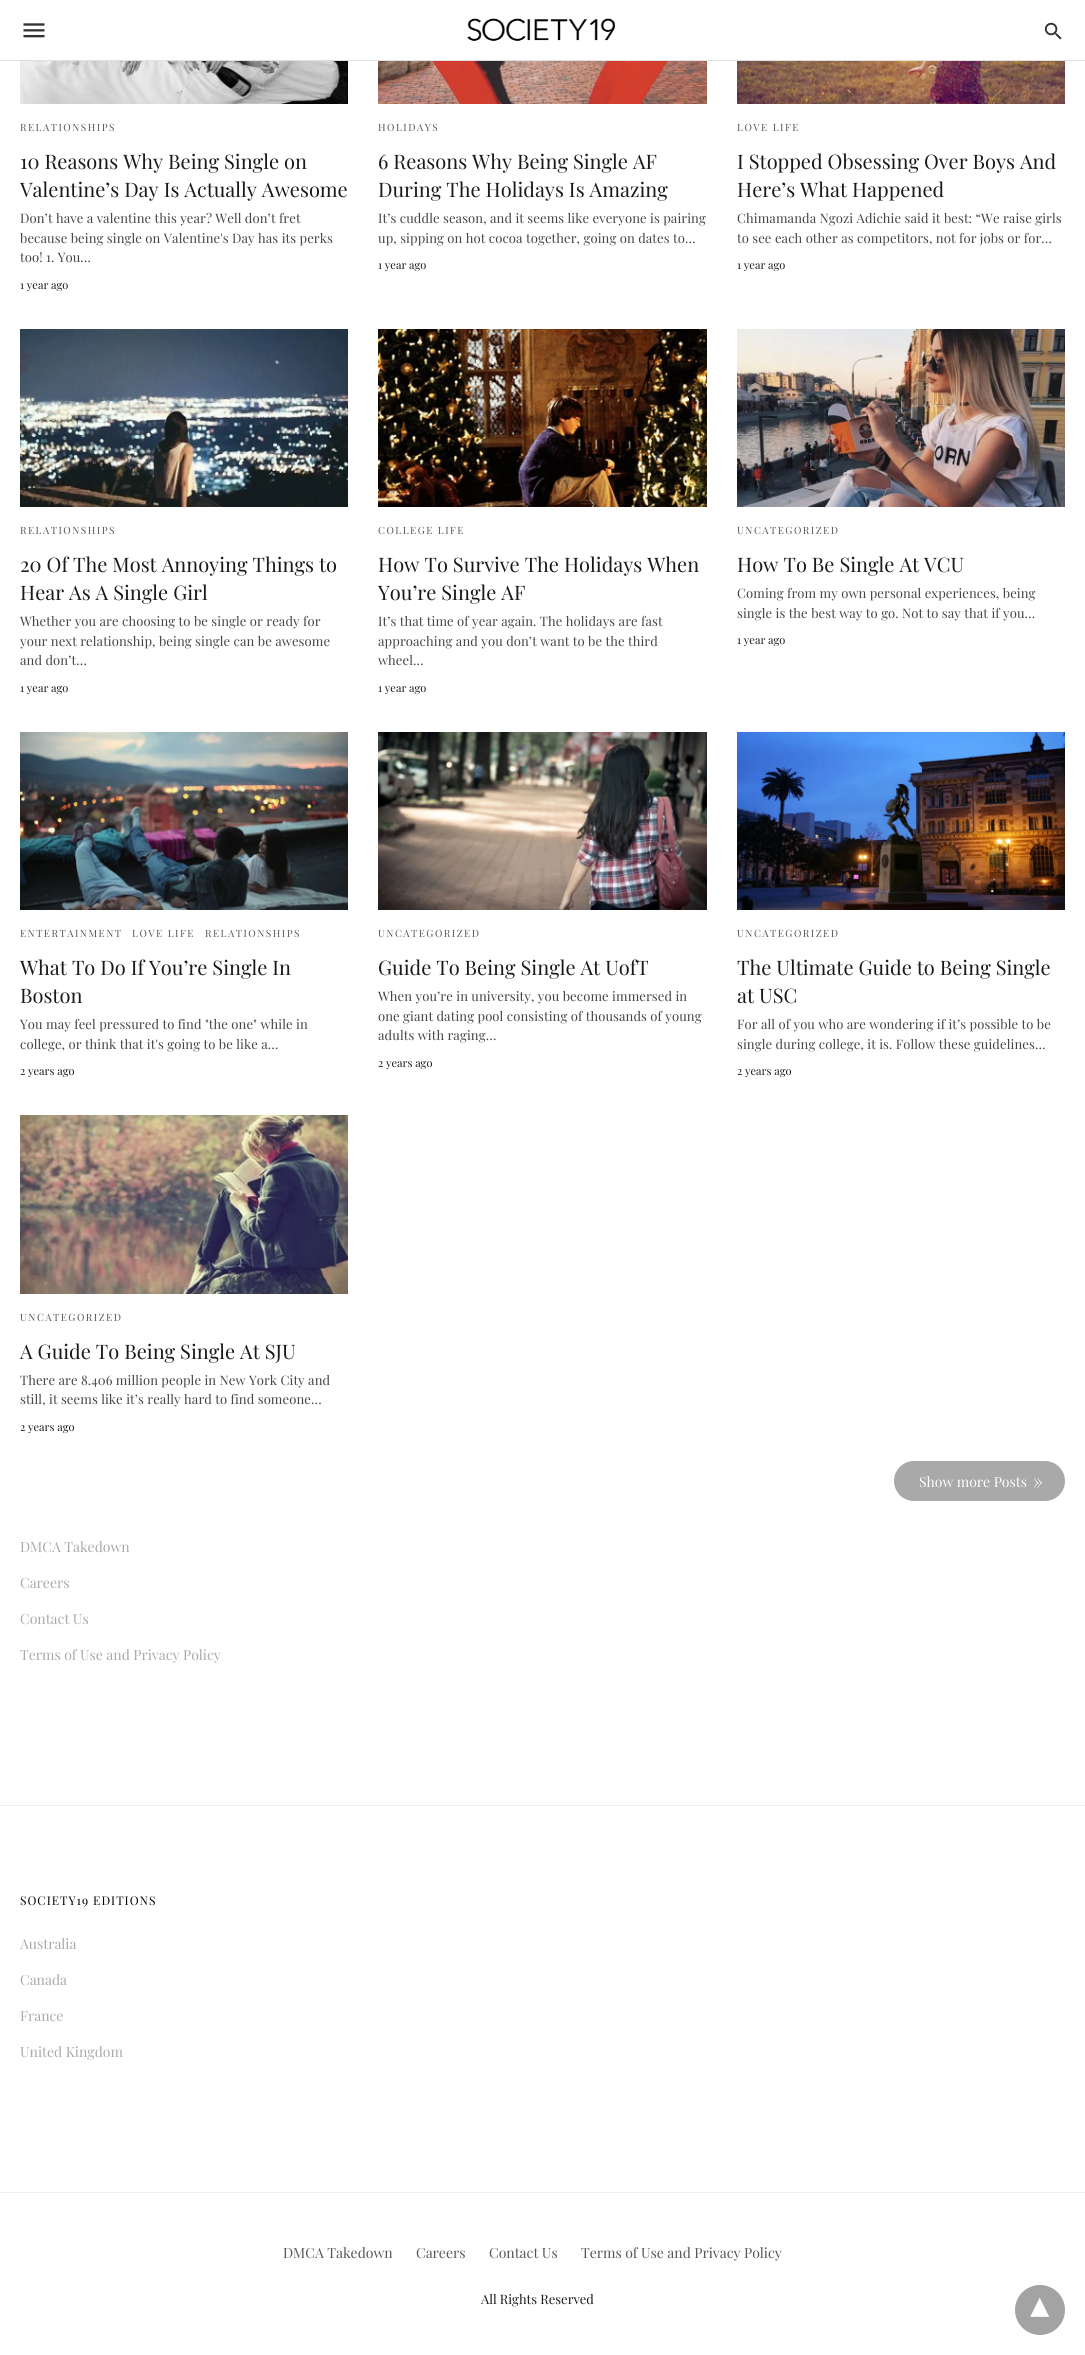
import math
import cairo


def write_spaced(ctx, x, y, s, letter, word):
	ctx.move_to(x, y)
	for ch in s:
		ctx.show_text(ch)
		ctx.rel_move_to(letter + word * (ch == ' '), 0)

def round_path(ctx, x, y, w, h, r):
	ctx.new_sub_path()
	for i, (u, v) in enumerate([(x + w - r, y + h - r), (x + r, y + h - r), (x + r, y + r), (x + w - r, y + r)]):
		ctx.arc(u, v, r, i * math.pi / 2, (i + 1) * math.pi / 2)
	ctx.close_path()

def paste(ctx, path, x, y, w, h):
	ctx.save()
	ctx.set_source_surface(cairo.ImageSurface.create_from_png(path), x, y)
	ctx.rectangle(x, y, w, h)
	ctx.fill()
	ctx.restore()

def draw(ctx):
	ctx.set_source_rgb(1, 1, 1)
	ctx.paint()
	ctx.set_source_rgb(0.878, 0.878, 0.878)
	ctx.rectangle(0, 60, 1085, 1)
	ctx.fill()
	paste(ctx, 'media/1.png', 23, 23, 22, 15)
	paste(ctx, 'media/2.png', 467, 18, 148, 23)
	paste(ctx, 'media/3.png', 1044, 22, 18, 18)
	paste(ctx, 'media/4.png', 20, 61, 328, 43)
	ctx.select_font_face('Playfair Display')
	ctx.set_font_size(10)
	ctx.set_source_rgb(0.333, 0.333, 0.333)
	write_spaced(ctx, 20, 131, 'RELATIONSHIPS', 1.5, 0)
	ctx.set_font_size(20)
	ctx.set_source_rgb(0.098, 0.098, 0.098)
	ctx.move_to(20, 169)
	ctx.show_text('10 Reasons Why Being Single on')
	ctx.move_to(20, 197)
	ctx.show_text('Valentine’s Day Is Actually Awesome')
	ctx.set_font_size(13)
	ctx.set_source_rgb(0.267, 0.267, 0.267)
	for x, y, s in [
		(20, 223, 'Don’t have a valentine this year? Well don’t fret'),
		(20, 243, 'because being single on Valentine\'s Day has its perks'),
		(20, 262, 'too! 1. You…'),
	]:
		write_spaced(ctx, x, y, s, 0.1, 0)
	ctx.set_font_size(11)
	ctx.set_source_rgb(0.098, 0.098, 0.098)
	ctx.move_to(20, 289)
	ctx.show_text('1 year ago')
	paste(ctx, 'media/5.png', 378, 61, 329, 43)
	ctx.set_font_size(10)
	ctx.set_source_rgb(0.333, 0.333, 0.333)
	write_spaced(ctx, 378, 131, 'HOLIDAYS', 1.5, 0)
	ctx.set_font_size(20)
	ctx.set_source_rgb(0.098, 0.098, 0.098)
	ctx.move_to(378, 169)
	ctx.show_text('6 Reasons Why Being Single AF')
	ctx.move_to(378, 197)
	ctx.show_text('During The Holidays Is Amazing')
	ctx.set_font_size(13)
	ctx.set_source_rgb(0.267, 0.267, 0.267)
	write_spaced(ctx, 378, 223, 'It’s cuddle season, and it seems like everyone is pairing', 0.1, 0)
	write_spaced(ctx, 378, 243, 'up, sipping on hot cocoa together, going on dates to…', 0.1, 0)
	ctx.set_font_size(11)
	ctx.set_source_rgb(0.098, 0.098, 0.098)
	ctx.move_to(378, 269)
	ctx.show_text('1 year ago')
	paste(ctx, 'media/6.png', 737, 61, 328, 43)
	ctx.set_font_size(10)
	ctx.set_source_rgb(0.333, 0.333, 0.333)
	write_spaced(ctx, 737, 131, 'LOVE LIFE', 1.5, 0)
	ctx.set_font_size(20)
	ctx.set_source_rgb(0.098, 0.098, 0.098)
	ctx.move_to(737, 169)
	ctx.show_text('I Stopped Obsessing Over Boys And')
	ctx.move_to(737, 197)
	ctx.show_text('Here’s What Happened')
	ctx.set_font_size(13)
	ctx.set_source_rgb(0.267, 0.267, 0.267)
	write_spaced(ctx, 737, 223, 'Chimamanda Ngozi Adichie said it best: “We raise girls', 0.1, 0)
	write_spaced(ctx, 737, 243, 'to see each other as competitors, not for jobs or for…', 0.1, 0)
	ctx.set_font_size(11)
	ctx.set_source_rgb(0.098, 0.098, 0.098)
	ctx.move_to(737, 269)
	ctx.show_text('1 year ago')
	paste(ctx, 'media/7.png', 20, 329, 328, 178)
	ctx.set_font_size(10)
	ctx.set_source_rgb(0.333, 0.333, 0.333)
	write_spaced(ctx, 20, 534, 'RELATIONSHIPS', 1.5, 0)
	ctx.set_font_size(20)
	ctx.set_source_rgb(0.098, 0.098, 0.098)
	ctx.move_to(20, 572)
	ctx.show_text('20 Of The Most Annoying Things to')
	ctx.move_to(20, 600)
	ctx.show_text('Hear As A Single Girl')
	ctx.set_font_size(13)
	ctx.set_source_rgb(0.267, 0.267, 0.267)
	for x, y, s in [
		(20, 626, 'Whether you are choosing to be single or ready for'),
		(20, 646, 'your next relationship, being single can be awesome'),
		(20, 665, 'and don’t…'),
	]:
		write_spaced(ctx, x, y, s, 0.1, 0)
	ctx.set_font_size(11)
	ctx.set_source_rgb(0.098, 0.098, 0.098)
	ctx.move_to(20, 692)
	ctx.show_text('1 year ago')
	paste(ctx, 'media/8.png', 378, 329, 329, 178)
	ctx.set_font_size(10)
	ctx.set_source_rgb(0.333, 0.333, 0.333)
	write_spaced(ctx, 378, 534, 'COLLEGE LIFE', 1.5, 0)
	ctx.set_font_size(20)
	ctx.set_source_rgb(0.098, 0.098, 0.098)
	ctx.move_to(378, 572)
	ctx.show_text('How To Survive The Holidays When')
	ctx.move_to(378, 600)
	ctx.show_text('You’re Single AF')
	ctx.set_font_size(13)
	ctx.set_source_rgb(0.267, 0.267, 0.267)
	for x, y, s in [
		(378, 626, 'It’s that time of year again. The holidays are fast'),
		(378, 646, 'approaching and you don’t want to be the third'),
		(378, 665, 'wheel…'),
	]:
		write_spaced(ctx, x, y, s, 0.1, 0)
	ctx.set_font_size(11)
	ctx.set_source_rgb(0.098, 0.098, 0.098)
	ctx.move_to(378, 692)
	ctx.show_text('1 year ago')
	paste(ctx, 'media/9.png', 737, 329, 328, 178)
	ctx.set_font_size(10)
	ctx.set_source_rgb(0.333, 0.333, 0.333)
	write_spaced(ctx, 737, 534, 'UNCATEGORIZED', 1.5, 0)
	ctx.set_font_size(20)
	ctx.set_source_rgb(0.098, 0.098, 0.098)
	ctx.move_to(737, 572)
	ctx.show_text('How To Be Single At VCU')
	ctx.set_font_size(13)
	ctx.set_source_rgb(0.267, 0.267, 0.267)
	write_spaced(ctx, 737, 598, 'Coming from my own personal experiences, being', 0.1, 0)
	write_spaced(ctx, 737, 618, 'single is the best way to go. Not to say that if you…', 0.1, 0)
	ctx.set_font_size(11)
	ctx.set_source_rgb(0.098, 0.098, 0.098)
	ctx.move_to(737, 644)
	ctx.show_text('1 year ago')
	paste(ctx, 'media/10.png', 20, 732, 328, 178)
	ctx.set_font_size(10)
	ctx.set_source_rgb(0.333, 0.333, 0.333)
	for x, y, s in [
		(20, 937, 'ENTERTAINMENT'),
		(132, 937, 'LOVE LIFE'),
		(205, 937, 'RELATIONSHIPS'),
	]:
		write_spaced(ctx, x, y, s, 1.5, 0)
	ctx.set_font_size(20)
	ctx.set_source_rgb(0.098, 0.098, 0.098)
	ctx.move_to(20, 975)
	ctx.show_text('What To Do If You’re Single In')
	ctx.move_to(20, 1003)
	ctx.show_text('Boston')
	ctx.set_font_size(13)
	ctx.set_source_rgb(0.267, 0.267, 0.267)
	write_spaced(ctx, 20, 1029, 'You may feel pressured to find "the one" while in', 0.1, 0)
	write_spaced(ctx, 20, 1049, 'college, or think that it\'s going to be like a…', 0.1, 0)
	ctx.set_font_size(11)
	ctx.set_source_rgb(0.098, 0.098, 0.098)
	ctx.move_to(20, 1075)
	ctx.show_text('2 years ago')
	paste(ctx, 'media/11.png', 378, 732, 329, 178)
	ctx.set_font_size(10)
	ctx.set_source_rgb(0.333, 0.333, 0.333)
	write_spaced(ctx, 378, 937, 'UNCATEGORIZED', 1.5, 0)
	ctx.set_font_size(20)
	ctx.set_source_rgb(0.098, 0.098, 0.098)
	ctx.move_to(378, 975)
	ctx.show_text('Guide To Being Single At UofT')
	ctx.set_font_size(13)
	ctx.set_source_rgb(0.267, 0.267, 0.267)
	for x, y, s in [
		(378, 1001, 'When you’re in university, you become immersed in'),
		(378, 1021, 'one giant dating pool consisting of thousands of young'),
		(378, 1040, 'adults with raging…'),
	]:
		write_spaced(ctx, x, y, s, 0.1, 0)
	ctx.set_font_size(11)
	ctx.set_source_rgb(0.098, 0.098, 0.098)
	ctx.move_to(378, 1067)
	ctx.show_text('2 years ago')
	paste(ctx, 'media/12.png', 737, 732, 328, 178)
	ctx.set_font_size(10)
	ctx.set_source_rgb(0.333, 0.333, 0.333)
	write_spaced(ctx, 737, 937, 'UNCATEGORIZED', 1.5, 0)
	ctx.set_font_size(20)
	ctx.set_source_rgb(0.098, 0.098, 0.098)
	ctx.move_to(737, 975)
	ctx.show_text('The Ultimate Guide to Being Single')
	ctx.move_to(737, 1003)
	ctx.show_text('at USC')
	ctx.set_font_size(13)
	ctx.set_source_rgb(0.267, 0.267, 0.267)
	write_spaced(ctx, 737, 1029, 'For all of you who are wondering if it’s possible to be', 0.1, 0)
	write_spaced(ctx, 737, 1049, 'single during college, it is. Follow these guidelines…', 0.1, 0)
	ctx.set_font_size(11)
	ctx.set_source_rgb(0.098, 0.098, 0.098)
	ctx.move_to(737, 1075)
	ctx.show_text('2 years ago')
	paste(ctx, 'media/13.png', 20, 1115, 328, 179)
	ctx.set_font_size(10)
	ctx.set_source_rgb(0.333, 0.333, 0.333)
	write_spaced(ctx, 20, 1321, 'UNCATEGORIZED', 1.5, 0)
	ctx.set_font_size(20)
	ctx.set_source_rgb(0.098, 0.098, 0.098)
	ctx.move_to(20, 1359)
	ctx.show_text('A Guide To Being Single At SJU')
	ctx.set_font_size(13)
	ctx.set_source_rgb(0.267, 0.267, 0.267)
	write_spaced(ctx, 20, 1385, 'There are 8.406 million people in New York City and', 0.1, 0)
	write_spaced(ctx, 20, 1404, 'still, it seems like it’s really hard to find someone…', 0.1, 0)
	ctx.set_font_size(11)
	ctx.set_source_rgb(0.098, 0.098, 0.098)
	ctx.move_to(20, 1431)
	ctx.show_text('2 years ago')
	ctx.set_source_rgb(0.663, 0.663, 0.663)
	round_path(ctx, 894, 1461, 171, 40, 20)
	ctx.fill()
	ctx.set_font_size(14)
	ctx.set_source_rgb(1, 1, 1)
	ctx.move_to(919, 1487)
	ctx.show_text('Show more Posts')
	ctx.set_font_size(20)
	ctx.move_to(1033, 1488)
	ctx.show_text('»')
	ctx.set_font_size(14)
	ctx.set_source_rgb(0.663, 0.663, 0.663)
	for x, y, s in [
		(20, 1552, 'DMCA Takedown'),
		(20, 1588, 'Careers'),
		(20, 1624, 'Contact Us'),
		(20, 1660, 'Terms of Use and Privacy Policy'),
	]:
		ctx.move_to(x, y)
		ctx.show_text(s)
	ctx.set_source_rgb(0.933, 0.933, 0.933)
	ctx.rectangle(0, 1805, 1085, 1)
	ctx.fill()
	ctx.set_font_size(12)
	ctx.set_source_rgb(0, 0, 0)
	write_spaced(ctx, 20, 1905, 'SOCIETY19 EDITIONS', 1, 0)
	ctx.set_font_size(14)
	ctx.set_source_rgb(0.663, 0.663, 0.663)
	for x, y, s in [
		(20, 1949, 'Australia'),
		(20, 1985, 'Canada'),
		(20, 2021, 'France'),
		(20, 2057, 'United Kingdom'),
	]:
		ctx.move_to(x, y)
		ctx.show_text(s)
	ctx.set_source_rgb(0.933, 0.933, 0.933)
	ctx.rectangle(0, 2192, 1085, 1)
	ctx.fill()
	ctx.set_source_rgb(0.333, 0.333, 0.333)
	for x, y, s in [
		(283, 2258, 'DMCA Takedown'),
		(416, 2258, 'Careers'),
		(489, 2258, 'Contact Us'),
		(581, 2258, 'Terms of Use and Privacy Policy'),
	]:
		ctx.move_to(x, y)
		ctx.show_text(s)
	ctx.set_font_size(13)
	ctx.set_source_rgb(0.098, 0.098, 0.098)
	ctx.move_to(481, 2304)
	ctx.show_text('All Rights Reserved')
	ctx.set_source_rgb(0.639, 0.639, 0.639)
	ctx.new_path()
	ctx.arc(1040, 2310, 25, 0, 2 * math.pi)
	ctx.fill()
	ctx.select_font_face('DejaVu Sans', cairo.FONT_SLANT_NORMAL, cairo.FONT_WEIGHT_BOLD)
	ctx.set_font_size(35)
	ctx.set_source_rgb(1, 1, 1)
	ctx.save()
	ctx.translate(1049, 2298)
	ctx.rotate(180 * math.pi / 180)
	ctx.move_to(0, 0)
	ctx.show_text('▾')
	ctx.restore()


surface = cairo.ImageSurface(cairo.FORMAT_RGB24, 1085, 2355)
ctx = cairo.Context(surface)
options = cairo.FontOptions()
options.set_hint_metrics(cairo.HINT_METRICS_OFF)
options.set_hint_style(cairo.HINT_STYLE_NONE)
ctx.set_font_options(options)
ctx.set_miter_limit(4)
draw(ctx)
surface.write_to_png('image.png')
